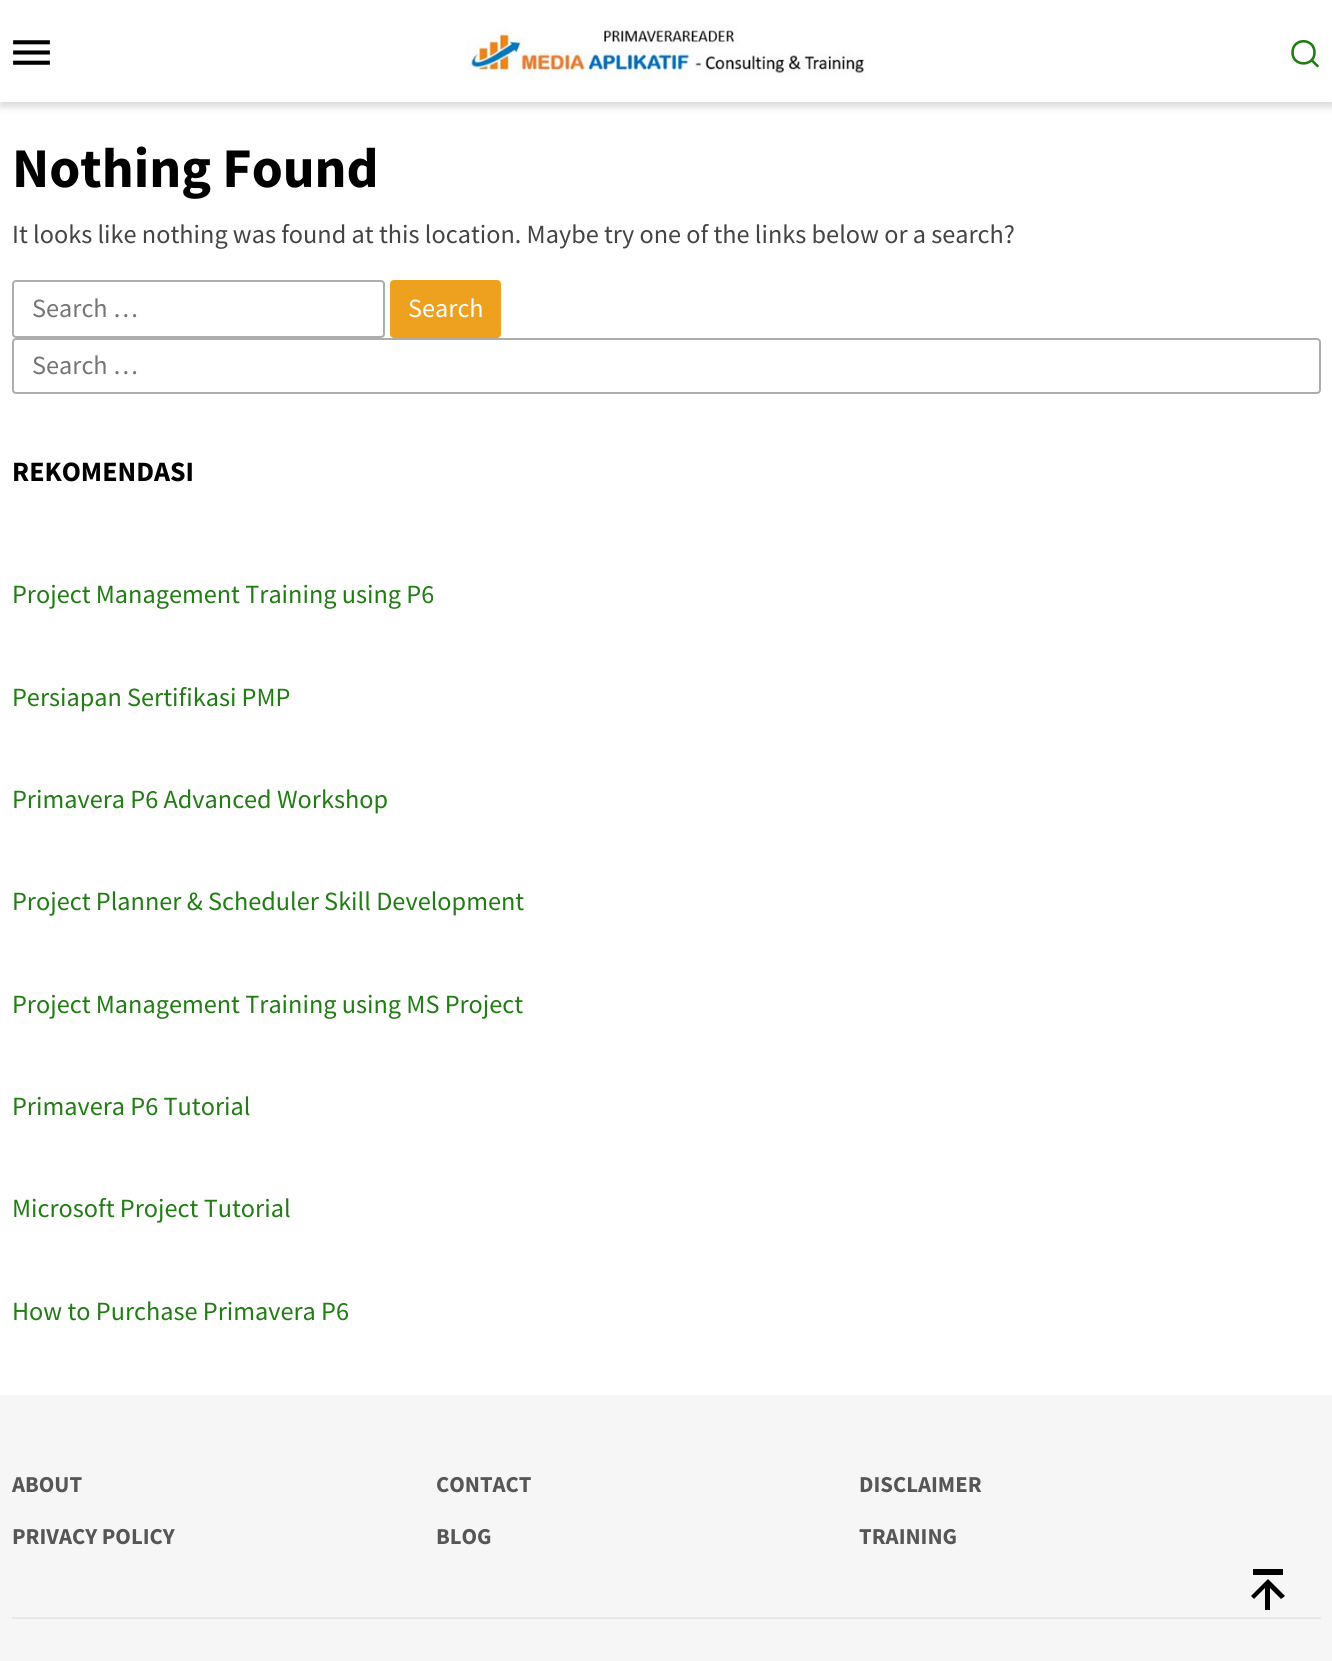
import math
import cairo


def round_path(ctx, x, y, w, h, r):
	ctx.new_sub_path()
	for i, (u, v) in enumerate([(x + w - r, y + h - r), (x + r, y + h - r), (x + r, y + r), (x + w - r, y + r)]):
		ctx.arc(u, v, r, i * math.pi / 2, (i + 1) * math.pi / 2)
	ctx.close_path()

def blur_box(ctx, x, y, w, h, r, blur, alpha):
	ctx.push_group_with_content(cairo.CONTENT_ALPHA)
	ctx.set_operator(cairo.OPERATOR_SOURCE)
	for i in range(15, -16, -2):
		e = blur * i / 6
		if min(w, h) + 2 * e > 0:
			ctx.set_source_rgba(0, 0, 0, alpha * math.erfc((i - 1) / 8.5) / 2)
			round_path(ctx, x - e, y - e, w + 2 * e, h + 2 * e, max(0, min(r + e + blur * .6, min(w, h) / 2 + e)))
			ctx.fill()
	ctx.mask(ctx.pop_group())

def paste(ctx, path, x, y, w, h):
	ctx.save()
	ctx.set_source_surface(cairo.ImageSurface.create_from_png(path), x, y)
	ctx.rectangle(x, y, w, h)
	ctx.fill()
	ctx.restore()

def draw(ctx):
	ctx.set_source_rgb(0.961, 0.961, 0.961)
	ctx.paint()
	ctx.set_source_rgb(1, 1, 1)
	ctx.rectangle(0, 102, 1332, 1293)
	ctx.fill()
	ctx.set_source_rgb(0.204, 0.204, 0.204)
	blur_box(ctx, 0, 5, 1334, 102, 0, 3.5, 0.18)
	ctx.set_source_rgb(1, 1, 1)
	ctx.rectangle(0, 0, 1332, 102)
	ctx.fill()
	paste(ctx, 'media/1.png', 13, 40, 37, 25)
	paste(ctx, 'media/2.png', 467, 24, 398, 53)
	ctx.new_path()
	ctx.move_to(1317.5, 66)
	ctx.line_to(1311.5, 60)
	ctx.move_to(1314.5, 52.5)
	ctx.curve_to(1314.5, 67, 1292.5, 67, 1292.5, 52.5)
	ctx.curve_to(1292.5, 37.5, 1314.5, 37.5, 1314.5, 52.5)
	ctx.close_path()
	ctx.set_source_rgb(0.125, 0.486, 0.075)
	ctx.set_line_width(2.6)
	ctx.set_line_cap(cairo.LINE_CAP_ROUND)
	ctx.stroke()
	ctx.select_font_face('Source Sans Pro', cairo.FONT_SLANT_NORMAL, cairo.FONT_WEIGHT_BOLD)
	ctx.set_font_size(56)
	ctx.set_source_rgb(0, 0, 0)
	ctx.move_to(12, 187)
	ctx.show_text('Nothing Found')
	ctx.select_font_face('Source Sans Pro')
	ctx.set_font_size(26.25)
	ctx.set_source_rgb(0.267, 0.267, 0.267)
	ctx.move_to(12, 243)
	ctx.show_text('It looks like nothing was found at this location. Maybe try one of the links below or a search?')
	round_path(ctx, 13, 281, 371, 56, 3)
	ctx.set_source_rgb(0.678, 0.678, 0.678)
	ctx.set_line_width(2)
	ctx.set_line_cap(cairo.LINE_CAP_BUTT)
	ctx.stroke()
	ctx.set_source_rgb(0.459, 0.459, 0.459)
	ctx.move_to(32, 317)
	ctx.show_text('Search …')
	ctx.set_source_rgb(0.929, 0.631, 0.118)
	round_path(ctx, 390, 280, 111, 58, 4)
	ctx.fill()
	ctx.set_source_rgb(1, 1, 1)
	ctx.move_to(408, 317)
	ctx.show_text('Search')
	round_path(ctx, 13, 339, 1307, 54, 3)
	ctx.set_source_rgb(0.678, 0.678, 0.678)
	ctx.stroke()
	ctx.set_source_rgb(0.459, 0.459, 0.459)
	ctx.move_to(32, 374)
	ctx.show_text('Search …')
	ctx.select_font_face('Source Sans Pro', cairo.FONT_SLANT_NORMAL, cairo.FONT_WEIGHT_BOLD)
	ctx.set_font_size(28)
	ctx.set_source_rgb(0, 0, 0)
	ctx.move_to(12, 481)
	ctx.show_text('REKOMENDASI')
	ctx.select_font_face('Source Sans Pro')
	ctx.set_font_size(26.25)
	ctx.set_source_rgb(0.125, 0.486, 0.075)
	for x, y, s in [
		(12, 603, 'Project Management Training using P6'),
		(12, 706, 'Persiapan Sertifikasi PMP'),
		(12, 808, 'Primavera P6 Advanced Workshop'),
		(12, 910, 'Project Planner & Scheduler Skill Development'),
		(12, 1013, 'Project Management Training using MS Project'),
		(12, 1115, 'Primavera P6 Tutorial'),
		(12, 1217, 'Microsoft Project Tutorial'),
		(12, 1320, 'How to Purchase Primavera P6'),
	]:
		ctx.move_to(x, y)
		ctx.show_text(s)
	ctx.select_font_face('Source Sans Pro', cairo.FONT_SLANT_NORMAL, cairo.FONT_WEIGHT_BOLD)
	ctx.set_font_size(22.75)
	ctx.set_source_rgb(0.337, 0.337, 0.337)
	for x, y, s in [
		(12, 1492, 'ABOUT'),
		(436, 1492, 'CONTACT'),
		(859, 1492, 'DISCLAIMER'),
		(12, 1544, 'PRIVACY POLICY'),
		(436, 1544, 'BLOG'),
		(859, 1544, 'TRAINING'),
	]:
		ctx.move_to(x, y)
		ctx.show_text(s)
	ctx.set_source_rgb(0.914, 0.914, 0.914)
	ctx.rectangle(12, 1617, 1309, 2)
	ctx.fill()
	ctx.set_source_rgb(0, 0, 0)
	ctx.new_path()
	ctx.move_to(1253, 1569)
	ctx.line_to(1283, 1569)
	ctx.line_to(1283, 1575)
	ctx.line_to(1253, 1575)
	ctx.close_path()
	ctx.move_to(1254, 1599)
	ctx.line_to(1265, 1588)
	ctx.line_to(1265, 1610)
	ctx.line_to(1270, 1610)
	ctx.line_to(1270, 1588)
	ctx.line_to(1281, 1599)
	ctx.line_to(1285, 1596)
	ctx.line_to(1268, 1579)
	ctx.line_to(1251, 1596)
	ctx.close_path()
	ctx.fill()


surface = cairo.ImageSurface(cairo.FORMAT_RGB24, 1332, 1661)
ctx = cairo.Context(surface)
options = cairo.FontOptions()
options.set_hint_metrics(cairo.HINT_METRICS_OFF)
options.set_hint_style(cairo.HINT_STYLE_NONE)
ctx.set_font_options(options)
ctx.set_miter_limit(4)
draw(ctx)
surface.write_to_png('image.png')
